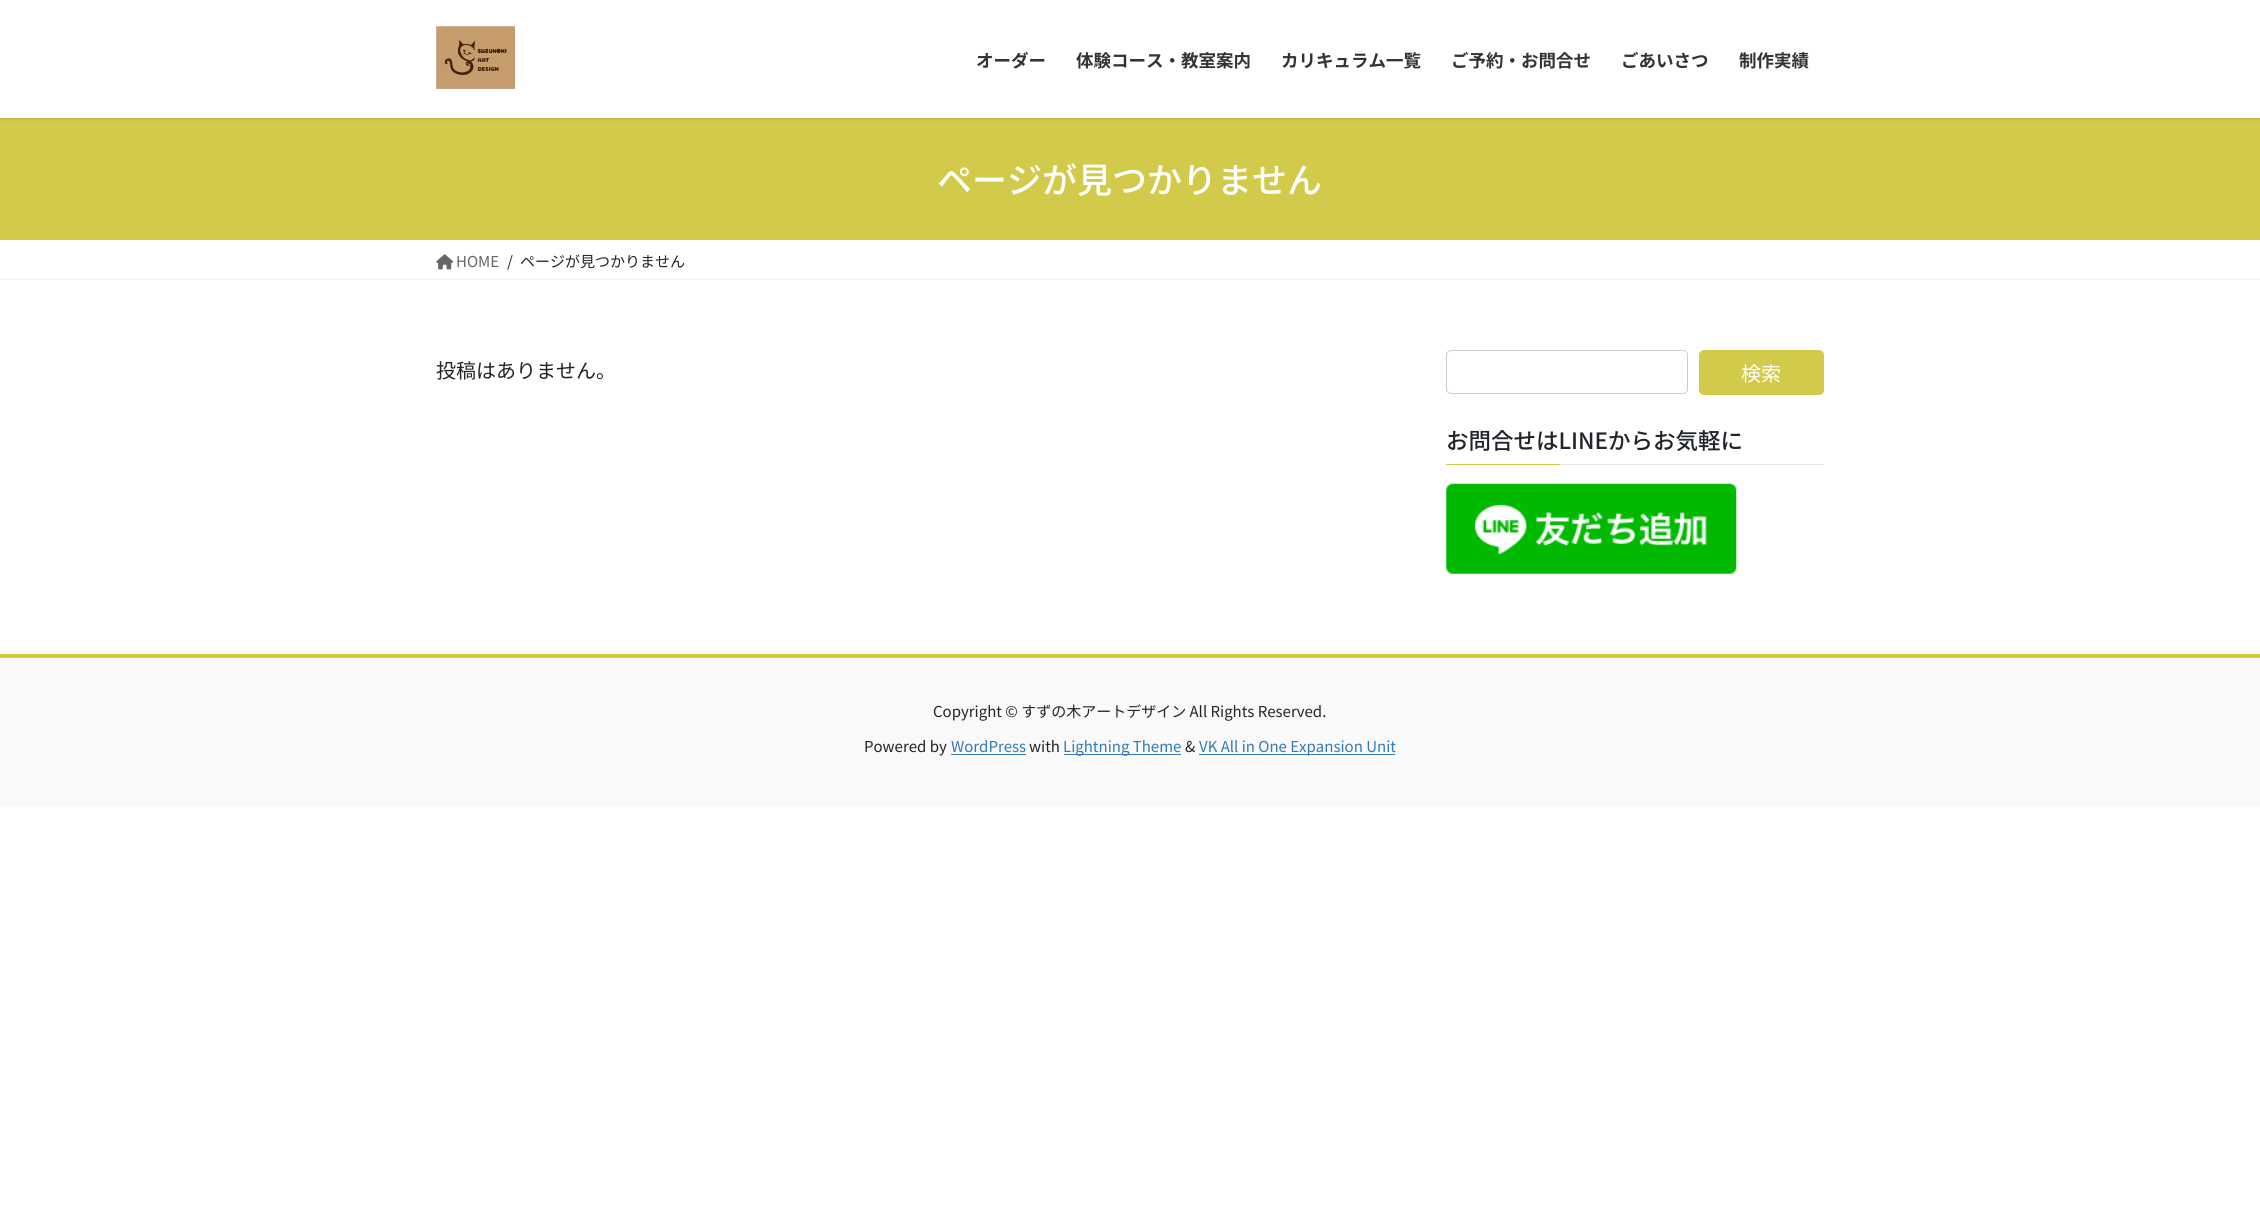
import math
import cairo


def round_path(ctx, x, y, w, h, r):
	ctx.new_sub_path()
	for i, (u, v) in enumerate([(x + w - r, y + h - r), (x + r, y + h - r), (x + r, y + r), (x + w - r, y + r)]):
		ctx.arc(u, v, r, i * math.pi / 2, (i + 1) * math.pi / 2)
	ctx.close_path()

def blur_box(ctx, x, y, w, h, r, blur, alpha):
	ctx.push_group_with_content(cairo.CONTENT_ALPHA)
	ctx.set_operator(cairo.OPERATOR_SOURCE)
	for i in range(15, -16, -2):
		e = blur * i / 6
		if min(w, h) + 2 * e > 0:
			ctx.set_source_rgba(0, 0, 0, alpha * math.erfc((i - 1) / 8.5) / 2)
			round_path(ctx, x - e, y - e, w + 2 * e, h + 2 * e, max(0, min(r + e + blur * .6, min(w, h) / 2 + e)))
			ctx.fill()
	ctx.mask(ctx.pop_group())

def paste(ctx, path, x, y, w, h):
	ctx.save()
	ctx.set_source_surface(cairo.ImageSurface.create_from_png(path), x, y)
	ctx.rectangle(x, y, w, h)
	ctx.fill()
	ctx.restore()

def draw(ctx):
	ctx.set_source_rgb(1, 1, 1)
	ctx.paint()
	ctx.set_source_rgb(0.82, 0.792, 0.294)
	ctx.rectangle(0, 118, 2260, 122)
	ctx.fill()
	ctx.set_source_rgb(0, 0, 0)
	blur_box(ctx, 0, 1, 2260, 118, 0, 2, 0.1)
	ctx.set_source_rgb(1, 1, 1)
	ctx.rectangle(0, 0, 2260, 118)
	ctx.fill()
	paste(ctx, 'media/1.png', 436, 26, 79, 63)
	ctx.select_font_face('Noto Sans JP', cairo.FONT_SLANT_NORMAL, cairo.FONT_WEIGHT_BOLD)
	ctx.set_font_size(17.5)
	ctx.set_source_rgb(0.2, 0.2, 0.2)
	for x, y, s in [
		(976, 67, 'オーダー'),
		(1076, 67, '体験コース・教室案内'),
		(1281, 67, 'カリキュラム一覧'),
		(1451, 67, 'ご予約・お問合せ'),
		(1621, 67, 'ごあいさつ'),
		(1739, 67, '制作実績'),
	]:
		ctx.move_to(x, y)
		ctx.show_text(s)
	ctx.select_font_face('Noto Sans JP Medium')
	ctx.set_font_size(35)
	ctx.set_source_rgb(1, 1, 1)
	ctx.move_to(937, 193)
	ctx.show_text('ページが見つかりません')
	ctx.set_source_rgb(0.949, 0.949, 0.949)
	ctx.rectangle(0, 279, 2260, 1)
	ctx.fill()
	paste(ctx, 'media/2.png', 436, 254, 18, 16)
	ctx.select_font_face('Noto Sans JP')
	ctx.set_font_size(15)
	ctx.set_source_rgb(0.4, 0.4, 0.4)
	ctx.move_to(456, 267)
	ctx.show_text('HOME')
	ctx.set_source_rgb(0.129, 0.145, 0.161)
	ctx.move_to(507, 267)
	ctx.show_text('/')
	ctx.move_to(520, 267)
	ctx.show_text('ページが見つかりません')
	ctx.set_font_size(20)
	ctx.move_to(436, 378)
	ctx.show_text('投稿はありません。')
	round_path(ctx, 1446.5, 350.5, 241, 43, 4.5)
	ctx.set_source_rgb(0.8, 0.8, 0.8)
	ctx.set_line_width(1)
	ctx.stroke()
	ctx.set_source_rgb(0.82, 0.792, 0.294)
	round_path(ctx, 1699, 350, 125, 45, 5)
	ctx.fill()
	ctx.set_source_rgb(1, 1, 1)
	ctx.move_to(1741, 381)
	ctx.show_text('検索')
	ctx.set_source_rgb(0.902, 0.902, 0.902)
	ctx.rectangle(1560, 464, 264, 1)
	ctx.fill()
	ctx.select_font_face('Noto Sans JP Medium')
	ctx.set_font_size(22.5)
	ctx.set_source_rgb(0.129, 0.145, 0.161)
	ctx.move_to(1446, 449)
	ctx.show_text('お問合せはLINEからお気軽に')
	ctx.set_source_rgb(0.82, 0.792, 0.294)
	ctx.rectangle(1446, 464, 114, 1)
	ctx.fill()
	paste(ctx, 'media/3.png', 1446, 483, 291, 91)
	ctx.set_source_rgb(0.976, 0.976, 0.976)
	ctx.rectangle(0, 658, 2260, 148)
	ctx.fill()
	ctx.set_source_rgb(0.82, 0.792, 0.294)
	ctx.rectangle(0, 654, 2260, 4)
	ctx.fill()
	ctx.select_font_face('Noto Sans JP')
	ctx.set_font_size(15)
	ctx.set_source_rgb(0.129, 0.145, 0.161)
	ctx.move_to(933, 717)
	ctx.show_text('Copyright © すずの木アートデザイン All Rights Reserved.')
	ctx.move_to(864, 752)
	ctx.show_text('Powered by')
	ctx.set_source_rgb(0.2, 0.478, 0.718)
	ctx.move_to(951, 752)
	ctx.show_text('WordPress')
	ctx.rectangle(951, 754, 75, 1)
	ctx.fill()
	ctx.set_source_rgb(0.129, 0.145, 0.161)
	ctx.move_to(1029, 752)
	ctx.show_text('with')
	ctx.set_source_rgb(0.2, 0.478, 0.718)
	ctx.rectangle(1064, 754, 117, 1)
	ctx.fill()
	ctx.move_to(1063, 752)
	ctx.show_text('Lightning Theme')
	ctx.set_source_rgb(0.129, 0.145, 0.161)
	ctx.move_to(1185, 752)
	ctx.show_text('&')
	ctx.set_source_rgb(0.2, 0.478, 0.718)
	ctx.rectangle(1199, 754, 196, 1)
	ctx.fill()
	ctx.move_to(1199, 752)
	ctx.show_text('VK All in One Expansion Unit')


surface = cairo.ImageSurface(cairo.FORMAT_RGB24, 2260, 1229)
ctx = cairo.Context(surface)
options = cairo.FontOptions()
options.set_hint_metrics(cairo.HINT_METRICS_OFF)
options.set_hint_style(cairo.HINT_STYLE_NONE)
ctx.set_font_options(options)
ctx.set_miter_limit(4)
draw(ctx)
surface.write_to_png('image.png')
